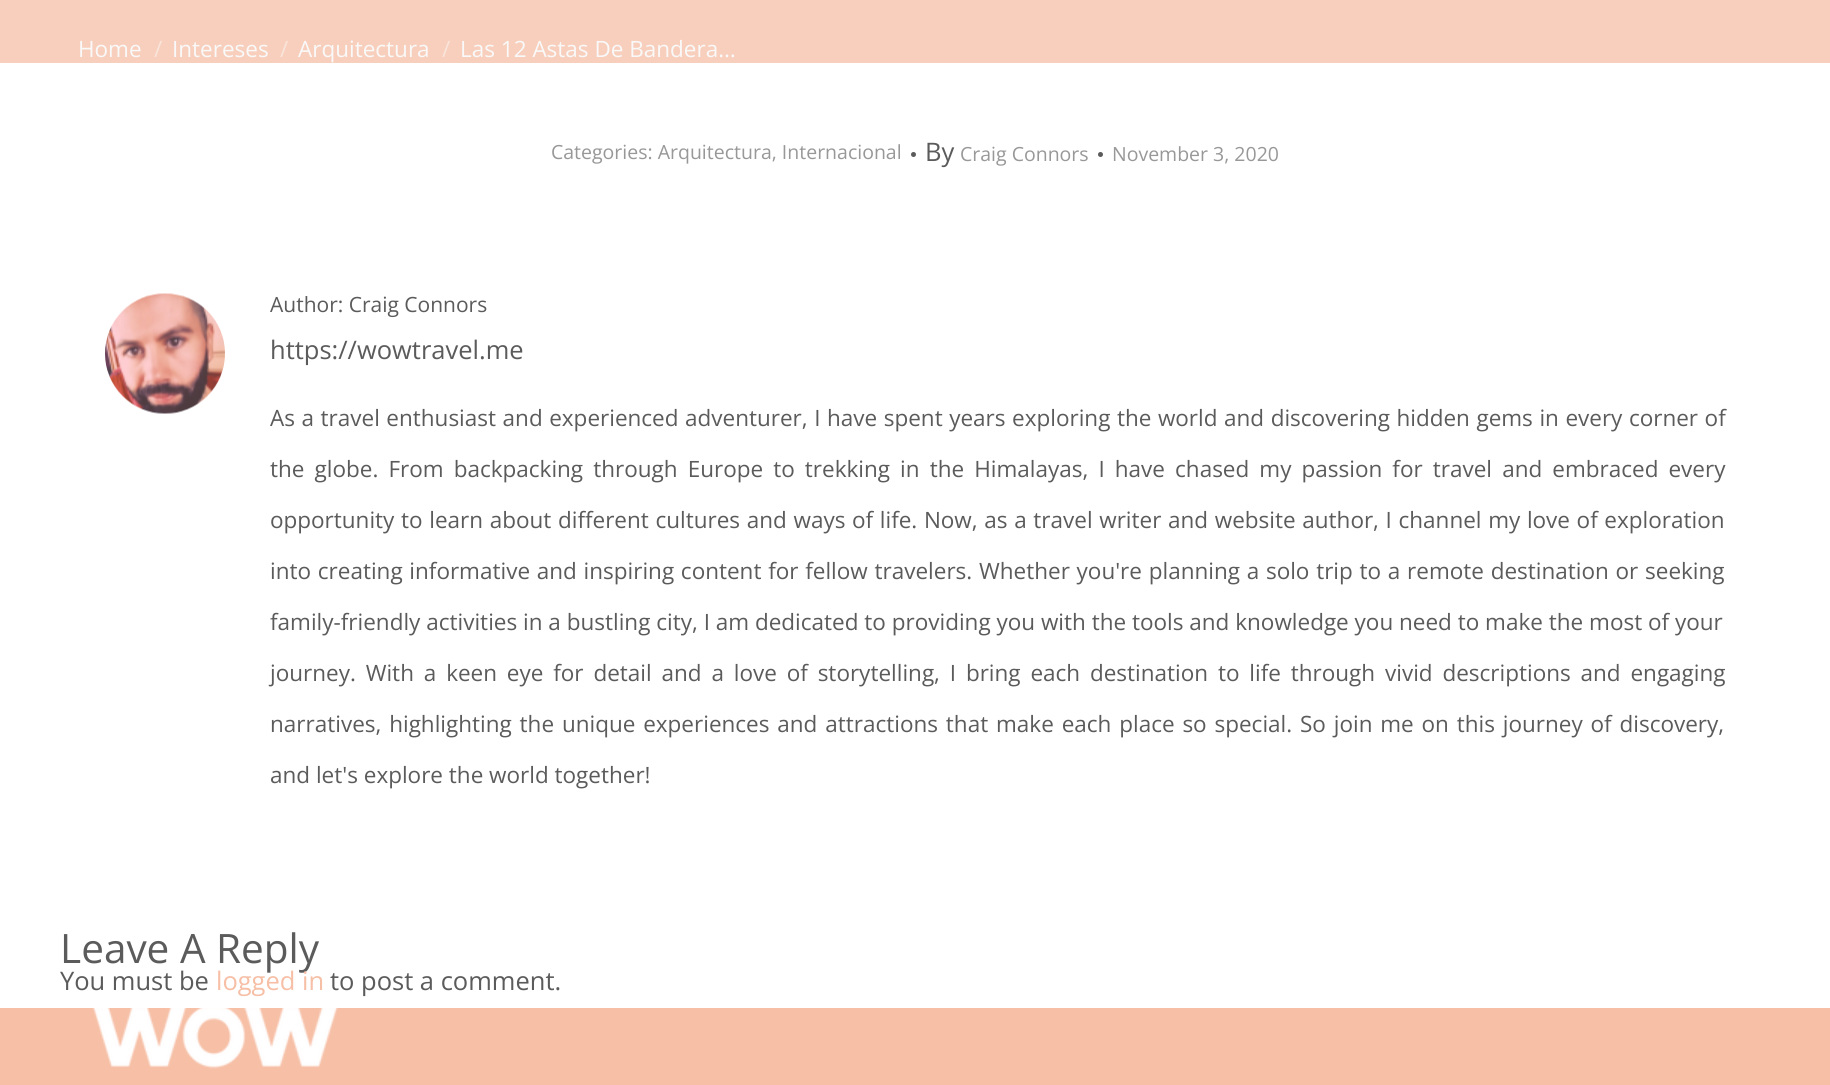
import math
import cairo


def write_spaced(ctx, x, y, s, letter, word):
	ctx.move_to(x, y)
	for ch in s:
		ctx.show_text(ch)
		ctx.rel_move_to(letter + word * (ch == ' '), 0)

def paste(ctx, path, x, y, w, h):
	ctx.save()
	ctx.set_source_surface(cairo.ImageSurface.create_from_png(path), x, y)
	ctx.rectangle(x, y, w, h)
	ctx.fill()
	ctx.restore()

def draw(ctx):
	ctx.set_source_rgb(0.961, 0.749, 0.651)
	ctx.paint()
	ctx.set_source_rgb(1, 1, 1)
	ctx.rectangle(0, 63, 1830, 945)
	ctx.fill()
	ctx.set_source_rgb(0.969, 0.812, 0.737)
	ctx.rectangle(0, 0, 1830, 63)
	ctx.fill()
	ctx.select_font_face('Open Sans')
	ctx.set_font_size(22.5)
	ctx.set_source_rgb(0.976, 0.976, 0.976)
	ctx.move_to(78, 57)
	ctx.show_text('Home')
	ctx.set_source_rgb(0.973, 0.894, 0.859)
	ctx.move_to(154, 57)
	ctx.show_text('/')
	ctx.set_source_rgb(0.976, 0.976, 0.976)
	ctx.move_to(172, 57)
	ctx.show_text('Intereses')
	ctx.set_source_rgb(0.973, 0.894, 0.859)
	ctx.move_to(280, 57)
	ctx.show_text('/')
	ctx.set_source_rgb(0.976, 0.976, 0.976)
	ctx.move_to(298, 57)
	ctx.show_text('Arquitectura')
	ctx.set_source_rgb(0.973, 0.894, 0.859)
	ctx.move_to(442, 57)
	ctx.show_text('/')
	ctx.set_source_rgb(0.976, 0.976, 0.976)
	ctx.move_to(460, 57)
	ctx.show_text('Las 12 Astas De Bandera…')
	ctx.set_font_size(19.5)
	ctx.set_source_rgb(0.596, 0.596, 0.596)
	ctx.move_to(551, 159)
	ctx.show_text('Categories: Arquitectura, Internacional')
	ctx.set_source_rgb(0.357, 0.357, 0.357)
	ctx.new_path()
	ctx.arc(913.5, 154.5, 2.5, 0, 2 * math.pi)
	ctx.fill()
	ctx.set_font_size(25.5)
	ctx.move_to(925, 161)
	ctx.show_text('By')
	ctx.set_font_size(19.5)
	ctx.set_source_rgb(0.596, 0.596, 0.596)
	ctx.move_to(960, 161)
	ctx.show_text('Craig Connors')
	ctx.set_source_rgb(0.357, 0.357, 0.357)
	ctx.new_path()
	ctx.arc(1100.5, 154.5, 2.5, 0, 2 * math.pi)
	ctx.fill()
	ctx.set_source_rgb(0.596, 0.596, 0.596)
	ctx.move_to(1112, 161)
	ctx.show_text('November 3, 2020')
	paste(ctx, 'media/1.png', 105, 293, 120, 121)
	ctx.set_font_size(21)
	ctx.set_source_rgb(0.357, 0.357, 0.357)
	ctx.move_to(270, 312)
	ctx.show_text('Author: Craig Connors')
	ctx.set_font_size(25.5)
	ctx.move_to(270, 359)
	ctx.show_text('https://wowtravel.me')
	ctx.set_font_size(22.5)
	write_spaced(ctx, 270, 426, 'As a travel enthusiast and experienced adventurer, I have spent years exploring the world and discovering hidden gems in every corner of', 0, 0.7)
	write_spaced(ctx, 270, 477, 'the globe. From backpacking through Europe to trekking in the Himalayas, I have chased my passion for travel and embraced every', 0, 4.25)
	write_spaced(ctx, 270, 528, 'opportunity to learn about different cultures and ways of life. Now, as a travel writer and website author, I channel my love of exploration', 0, 0.8)
	write_spaced(ctx, 270, 579, 'into creating informative and inspiring content for fellow travelers. Whether you\'re planning a solo trip to a remote destination or seeking', 0, 0.9)
	ctx.move_to(270, 630)
	ctx.show_text('family-friendly activities in a bustling city, I am dedicated to providing you with the tools and knowledge you need to make the most of your')
	write_spaced(ctx, 270, 681, 'journey. With a keen eye for detail and a love of storytelling, I bring each destination to life through vivid descriptions and engaging', 0, 4)
	write_spaced(ctx, 270, 732, 'narratives, highlighting the unique experiences and attractions that make each place so special. So join me on this journey of discovery,', 0, 2)
	ctx.move_to(270, 783)
	ctx.show_text('and let\'s explore the world together!')
	ctx.set_font_size(40.5)
	ctx.move_to(60, 963)
	ctx.show_text('Leave A Reply')
	ctx.set_font_size(25.5)
	ctx.move_to(60, 990)
	ctx.show_text('You must be')
	ctx.set_source_rgb(0.961, 0.749, 0.651)
	ctx.move_to(216, 990)
	ctx.show_text('logged in')
	ctx.set_source_rgb(0.357, 0.357, 0.357)
	ctx.move_to(330, 990)
	ctx.show_text('to post a comment.')
	paste(ctx, 'media/2.png', 92, 1008, 246, 61)


surface = cairo.ImageSurface(cairo.FORMAT_RGB24, 1830, 1085)
ctx = cairo.Context(surface)
options = cairo.FontOptions()
options.set_hint_metrics(cairo.HINT_METRICS_OFF)
options.set_hint_style(cairo.HINT_STYLE_NONE)
ctx.set_font_options(options)
ctx.set_miter_limit(4)
draw(ctx)
surface.write_to_png('image.png')
